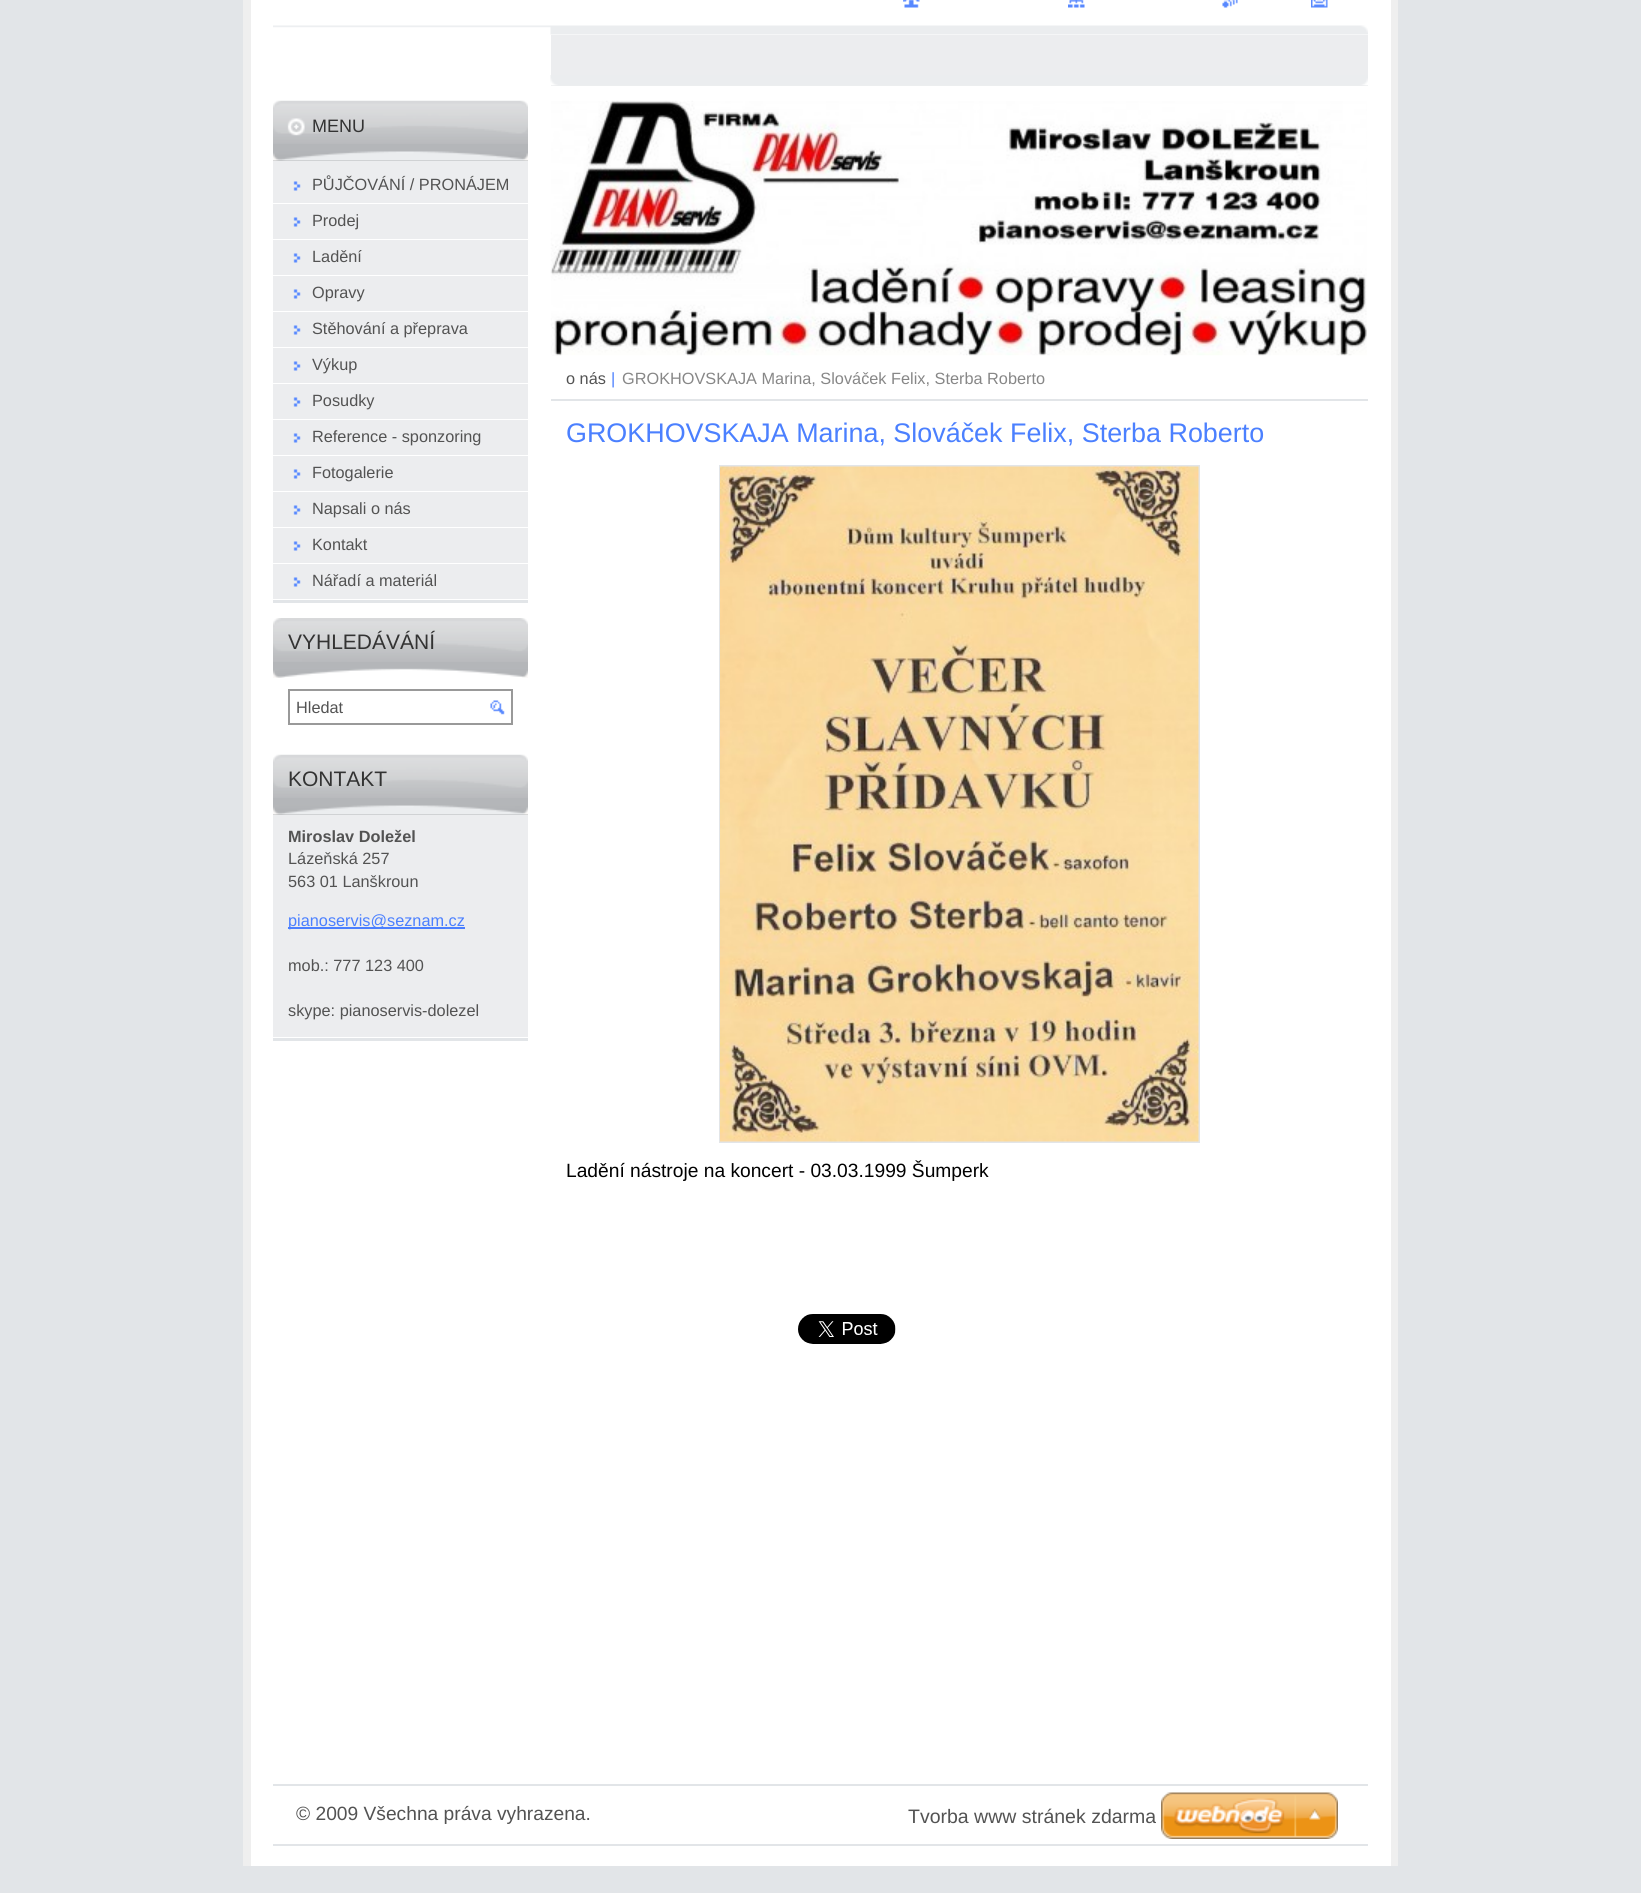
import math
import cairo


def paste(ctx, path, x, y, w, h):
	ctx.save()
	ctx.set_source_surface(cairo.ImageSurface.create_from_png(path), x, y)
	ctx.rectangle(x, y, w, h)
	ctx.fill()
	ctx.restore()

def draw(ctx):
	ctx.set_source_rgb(0.886, 0.898, 0.91)
	ctx.paint()
	ctx.set_source_rgb(1, 1, 1)
	ctx.rectangle(251, 0, 1140, 1866)
	ctx.fill()
	ctx.set_source_rgb(0.937, 0.937, 0.937)
	ctx.rectangle(1391, 0, 7, 1866)
	ctx.rectangle(243, 0, 8, 1866)
	ctx.fill()
	paste(ctx, 'media/1.png', 903, 0, 17, 8)
	paste(ctx, 'media/2.png', 1068, 0, 17, 8)
	paste(ctx, 'media/3.png', 1222, 0, 16, 8)
	paste(ctx, 'media/4.png', 1311, 0, 17, 8)
	paste(ctx, 'media/5.png', 273, 25, 1095, 10)
	ctx.set_source_rgb(0.922, 0.929, 0.937)
	ctx.rectangle(551, 35, 817, 51)
	ctx.fill()
	paste(ctx, 'media/6.png', 550, 75, 818, 11)
	ctx.set_source_rgb(0.886, 0.898, 0.91)
	ctx.rectangle(273, 600, 255, 3)
	ctx.fill()
	ctx.set_source_rgb(0.922, 0.929, 0.937)
	ctx.rectangle(273, 161, 255, 42)
	ctx.fill()
	ctx.set_source_rgb(0.706, 0.714, 0.725)
	ctx.rectangle(273, 144, 255, 17)
	ctx.fill()
	paste(ctx, 'media/7.png', 273, 100, 255, 44)
	paste(ctx, 'media/8.png', 273, 151, 255, 10)
	ctx.select_font_face('Liberation Sans')
	ctx.set_font_size(18)
	ctx.set_source_rgb(0.2, 0.2, 0.2)
	ctx.move_to(312, 132)
	ctx.show_text('MENU')
	paste(ctx, 'media/9.png', 293, 181, 8, 10)
	ctx.set_font_size(16.3)
	ctx.set_source_rgb(0.325, 0.325, 0.325)
	ctx.move_to(312, 190)
	ctx.show_text('PŮJČOVÁNÍ / PRONÁJEM')
	ctx.set_source_rgb(0.922, 0.929, 0.937)
	ctx.rectangle(273, 204, 255, 35)
	ctx.fill()
	paste(ctx, 'media/9.png', 293, 217, 8, 10)
	ctx.set_source_rgb(0.325, 0.325, 0.325)
	ctx.move_to(312, 226)
	ctx.show_text('Prodej')
	ctx.set_source_rgb(0.922, 0.929, 0.937)
	ctx.rectangle(273, 240, 255, 35)
	ctx.fill()
	paste(ctx, 'media/9.png', 293, 253, 8, 10)
	ctx.set_source_rgb(0.325, 0.325, 0.325)
	ctx.move_to(312, 262)
	ctx.show_text('Ladění')
	ctx.set_source_rgb(0.922, 0.929, 0.937)
	ctx.rectangle(273, 276, 255, 35)
	ctx.fill()
	paste(ctx, 'media/9.png', 293, 289, 8, 10)
	ctx.set_source_rgb(0.325, 0.325, 0.325)
	ctx.move_to(312, 298)
	ctx.show_text('Opravy')
	ctx.set_source_rgb(0.922, 0.929, 0.937)
	ctx.rectangle(273, 312, 255, 35)
	ctx.fill()
	paste(ctx, 'media/9.png', 293, 325, 8, 10)
	ctx.set_source_rgb(0.325, 0.325, 0.325)
	ctx.move_to(312, 334)
	ctx.show_text('Stěhování a přeprava')
	ctx.set_source_rgb(0.922, 0.929, 0.937)
	ctx.rectangle(273, 348, 255, 35)
	ctx.fill()
	paste(ctx, 'media/9.png', 293, 361, 8, 10)
	ctx.set_source_rgb(0.325, 0.325, 0.325)
	ctx.move_to(312, 370)
	ctx.show_text('Výkup')
	ctx.set_source_rgb(0.922, 0.929, 0.937)
	ctx.rectangle(273, 384, 255, 35)
	ctx.fill()
	paste(ctx, 'media/9.png', 293, 397, 8, 10)
	ctx.set_source_rgb(0.325, 0.325, 0.325)
	ctx.move_to(312, 406)
	ctx.show_text('Posudky')
	ctx.set_source_rgb(0.922, 0.929, 0.937)
	ctx.rectangle(273, 420, 255, 35)
	ctx.fill()
	paste(ctx, 'media/9.png', 293, 433, 8, 10)
	ctx.set_source_rgb(0.325, 0.325, 0.325)
	ctx.move_to(312, 442)
	ctx.show_text('Reference - sponzoring')
	ctx.set_source_rgb(0.922, 0.929, 0.937)
	ctx.rectangle(273, 456, 255, 35)
	ctx.fill()
	paste(ctx, 'media/9.png', 293, 469, 8, 10)
	ctx.set_source_rgb(0.325, 0.325, 0.325)
	ctx.move_to(312, 478)
	ctx.show_text('Fotogalerie')
	ctx.set_source_rgb(0.922, 0.929, 0.937)
	ctx.rectangle(273, 492, 255, 35)
	ctx.fill()
	paste(ctx, 'media/9.png', 293, 505, 8, 10)
	ctx.set_source_rgb(0.325, 0.325, 0.325)
	ctx.move_to(312, 514)
	ctx.show_text('Napsali o nás')
	ctx.set_source_rgb(0.922, 0.929, 0.937)
	ctx.rectangle(273, 528, 255, 35)
	ctx.fill()
	paste(ctx, 'media/9.png', 293, 541, 8, 10)
	ctx.set_source_rgb(0.325, 0.325, 0.325)
	ctx.move_to(312, 550)
	ctx.show_text('Kontakt')
	ctx.set_source_rgb(0.922, 0.929, 0.937)
	ctx.rectangle(273, 564, 255, 35)
	ctx.fill()
	paste(ctx, 'media/9.png', 293, 577, 8, 10)
	ctx.set_source_rgb(0.325, 0.325, 0.325)
	ctx.move_to(312, 586)
	ctx.show_text('Nářadí a materiál')
	ctx.set_source_rgb(0.706, 0.714, 0.725)
	ctx.rectangle(273, 662, 255, 8)
	ctx.fill()
	paste(ctx, 'media/10.png', 273, 618, 255, 44)
	paste(ctx, 'media/11.png', 273, 668, 255, 10)
	ctx.set_font_size(21)
	ctx.set_source_rgb(0.2, 0.2, 0.2)
	ctx.move_to(288, 649)
	ctx.show_text('VYHLEDÁVÁNÍ')
	ctx.rectangle(289, 690, 223, 34)
	ctx.set_source_rgb(0.6, 0.6, 0.6)
	ctx.stroke()
	ctx.set_font_size(16.3)
	ctx.set_source_rgb(0.325, 0.325, 0.325)
	ctx.move_to(296, 713)
	ctx.show_text('Hledat')
	paste(ctx, 'media/12.png', 490, 700, 15, 15)
	ctx.set_source_rgb(0.886, 0.898, 0.91)
	ctx.rectangle(273, 1038, 255, 3)
	ctx.fill()
	ctx.set_source_rgb(0.922, 0.929, 0.937)
	ctx.rectangle(273, 815, 255, 222)
	ctx.fill()
	ctx.set_source_rgb(0.706, 0.714, 0.725)
	ctx.rectangle(273, 798, 255, 17)
	ctx.fill()
	paste(ctx, 'media/13.png', 273, 754, 255, 44)
	paste(ctx, 'media/14.png', 273, 805, 255, 10)
	ctx.set_font_size(21)
	ctx.set_source_rgb(0.2, 0.2, 0.2)
	ctx.move_to(288, 786)
	ctx.show_text('KONTAKT')
	ctx.select_font_face('Liberation Sans', cairo.FONT_SLANT_NORMAL, cairo.FONT_WEIGHT_BOLD)
	ctx.set_font_size(16.3)
	ctx.set_source_rgb(0.325, 0.325, 0.325)
	ctx.move_to(288, 842)
	ctx.show_text('Miroslav Doležel')
	ctx.select_font_face('Liberation Sans')
	ctx.move_to(288, 864)
	ctx.show_text('Lázeňská 257')
	ctx.move_to(288, 887)
	ctx.show_text('563 01 Lanškroun')
	ctx.set_source_rgb(0.294, 0.498, 1)
	ctx.rectangle(288, 927, 177, 2)
	ctx.fill()
	ctx.set_source_rgb(0.294, 0.502, 1)
	ctx.move_to(288, 926)
	ctx.show_text('pianoservis@seznam.cz')
	ctx.set_source_rgb(0.325, 0.325, 0.325)
	ctx.move_to(288, 971)
	ctx.show_text('mob.: 777 123 400')
	ctx.move_to(288, 1016)
	ctx.show_text('skype: pianoservis-dolezel')
	paste(ctx, 'media/15.png', 550, 100, 817, 256)
	paste(ctx, 'media/16.png', 552, 353, 6, 2)
	ctx.set_source_rgb(0.886, 0.898, 0.91)
	ctx.rectangle(551, 399, 817, 2)
	ctx.fill()
	ctx.set_source_rgb(0.325, 0.325, 0.325)
	ctx.move_to(566, 384)
	ctx.show_text('o nás')
	ctx.set_source_rgb(0.294, 0.502, 1)
	ctx.move_to(611, 384)
	ctx.show_text('|')
	ctx.set_source_rgb(0.529, 0.529, 0.529)
	ctx.move_to(622, 384)
	ctx.show_text('GROKHOVSKAJA Marina, Slováček Felix, Sterba Roberto')
	ctx.set_font_size(26.9)
	ctx.set_source_rgb(0.294, 0.502, 1)
	ctx.move_to(566, 442)
	ctx.show_text('GROKHOVSKAJA Marina, Slováček Felix, Sterba Roberto')
	ctx.rectangle(720, 466, 479, 676)
	ctx.set_source_rgb(0.886, 0.898, 0.91)
	ctx.stroke()
	paste(ctx, 'media/17.png', 720, 466, 479, 676)
	ctx.set_font_size(19.2)
	ctx.set_source_rgb(0, 0, 0)
	ctx.move_to(566, 1177)
	ctx.show_text('Ladění nástroje na koncert - 03.03.1999 Šumperk')
	paste(ctx, 'media/18.png', 798, 1314, 98, 30)
	ctx.set_source_rgb(0.886, 0.898, 0.91)
	ctx.rectangle(273, 1784, 1095, 2)
	ctx.fill()
	ctx.rectangle(273, 1844, 1095, 2)
	ctx.fill()
	ctx.set_source_rgb(0.325, 0.325, 0.325)
	ctx.move_to(296, 1820)
	ctx.show_text('© 2009 Všechna práva vyhrazena.')
	ctx.set_font_size(19.5)
	ctx.move_to(908, 1823)
	ctx.show_text('Tvorba www stránek zdarma')
	paste(ctx, 'media/19.png', 1161, 1792, 177, 47)


surface = cairo.ImageSurface(cairo.FORMAT_RGB24, 1641, 1893)
ctx = cairo.Context(surface)
options = cairo.FontOptions()
options.set_hint_metrics(cairo.HINT_METRICS_OFF)
options.set_hint_style(cairo.HINT_STYLE_NONE)
ctx.set_font_options(options)
ctx.set_miter_limit(4)
draw(ctx)
surface.write_to_png('image.png')
